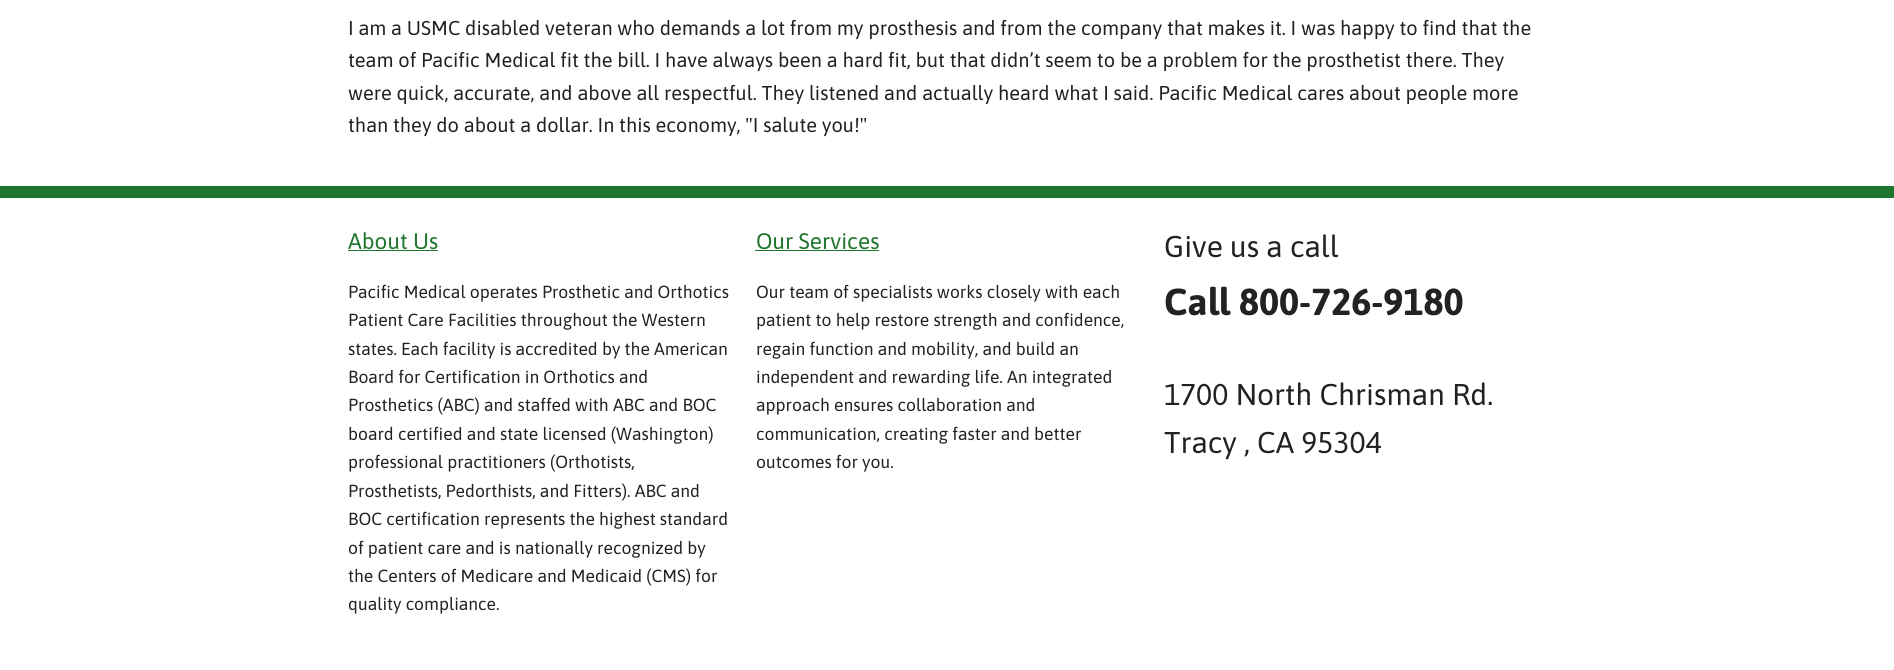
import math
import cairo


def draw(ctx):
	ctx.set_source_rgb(1, 1, 1)
	ctx.paint()
	ctx.select_font_face('Asap')
	ctx.set_font_size(20)
	ctx.set_source_rgb(0.133, 0.133, 0.133)
	for x, y, s in [
		(348, 35, 'I am a USMC disabled veteran who demands a lot from my prosthesis and from the company that makes it. I was happy to find that the'),
		(348, 67, 'team of Pacific Medical fit the bill. I have always been a hard fit, but that didn’t seem to be a problem for the prosthetist there. They'),
		(348, 100, 'were quick, accurate, and above all respectful. They listened and actually heard what I said. Pacific Medical cares about people more'),
		(348, 132, 'than they do about a dollar. In this economy, "I salute you!"'),
	]:
		ctx.move_to(x, y)
		ctx.show_text(s)
	ctx.set_source_rgb(0.118, 0.459, 0.173)
	ctx.rectangle(0, 186, 1894, 12)
	ctx.fill()
	ctx.set_font_size(22.5)
	ctx.move_to(348, 249)
	ctx.show_text('About Us')
	ctx.rectangle(348, 250, 90, 1)
	ctx.fill()
	ctx.set_font_size(17.5)
	ctx.set_source_rgb(0.133, 0.133, 0.133)
	for x, y, s in [
		(348, 298, 'Pacific Medical operates Prosthetic and Orthotics'),
		(348, 326, 'Patient Care Facilities throughout the Western'),
		(348, 355, 'states. Each facility is accredited by the American'),
		(348, 383, 'Board for Certification in Orthotics and'),
		(348, 411, 'Prosthetics (ABC) and staffed with ABC and BOC'),
		(348, 440, 'board certified and state licensed (Washington)'),
		(348, 468, 'professional practitioners (Orthotists,'),
		(348, 497, 'Prosthetists, Pedorthists, and Fitters). ABC and'),
		(348, 525, 'BOC certification represents the highest standard'),
		(348, 554, 'of patient care and is nationally recognized by'),
		(348, 582, 'the Centers of Medicare and Medicaid (CMS) for'),
		(348, 610, 'quality compliance.'),
	]:
		ctx.move_to(x, y)
		ctx.show_text(s)
	ctx.set_font_size(22.5)
	ctx.set_source_rgb(0.118, 0.459, 0.173)
	ctx.move_to(756, 249)
	ctx.show_text('Our Services')
	ctx.rectangle(755, 250, 124, 1)
	ctx.fill()
	ctx.set_font_size(17.5)
	ctx.set_source_rgb(0.133, 0.133, 0.133)
	for x, y, s in [
		(756, 298, 'Our team of specialists works closely with each'),
		(756, 326, 'patient to help restore strength and confidence,'),
		(756, 355, 'regain function and mobility, and build an'),
		(756, 383, 'independent and rewarding life. An integrated'),
		(756, 411, 'approach ensures collaboration and'),
		(756, 440, 'communication, creating faster and better'),
		(756, 468, 'outcomes for you.'),
	]:
		ctx.move_to(x, y)
		ctx.show_text(s)
	ctx.set_font_size(30)
	ctx.move_to(1164, 257)
	ctx.show_text('Give us a call')
	ctx.select_font_face('Asap', cairo.FONT_SLANT_NORMAL, cairo.FONT_WEIGHT_BOLD)
	ctx.set_font_size(37.5)
	ctx.move_to(1164, 315)
	ctx.show_text('Call 800-726-9180')
	ctx.select_font_face('Asap')
	ctx.set_font_size(30)
	ctx.move_to(1164, 405)
	ctx.show_text('1700 North Chrisman Rd.')
	ctx.move_to(1164, 453)
	ctx.show_text('Tracy , CA 95304')


surface = cairo.ImageSurface(cairo.FORMAT_RGB24, 1894, 670)
ctx = cairo.Context(surface)
options = cairo.FontOptions()
options.set_hint_metrics(cairo.HINT_METRICS_OFF)
options.set_hint_style(cairo.HINT_STYLE_NONE)
ctx.set_font_options(options)
ctx.set_miter_limit(4)
draw(ctx)
surface.write_to_png('image.png')
